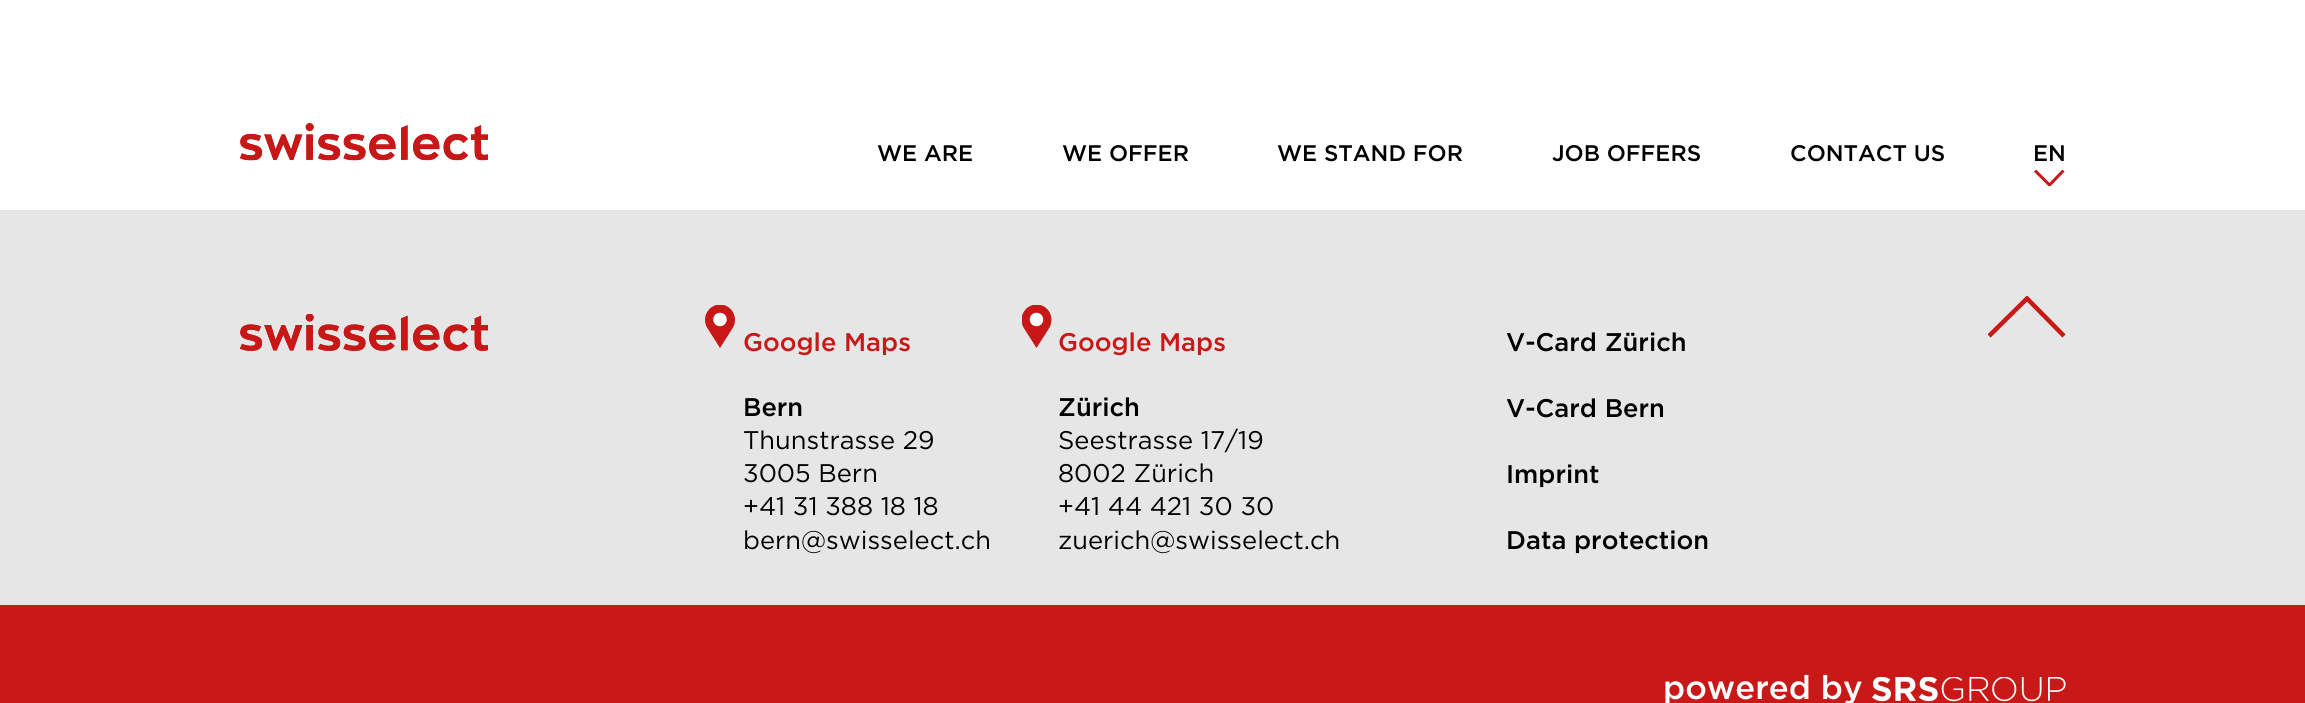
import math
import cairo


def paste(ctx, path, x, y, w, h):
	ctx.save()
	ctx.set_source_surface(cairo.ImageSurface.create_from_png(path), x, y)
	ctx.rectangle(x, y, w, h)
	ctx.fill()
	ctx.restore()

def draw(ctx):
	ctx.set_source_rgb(1, 1, 1)
	ctx.paint()
	paste(ctx, 'media/1.png', 240, 123, 248, 38)
	ctx.select_font_face('Gotham Medium')
	ctx.set_font_size(22.5)
	ctx.set_source_rgb(0, 0, 0)
	for x, y, s in [
		(877, 161, 'WE ARE'),
		(1062, 161, 'WE OFFER'),
		(1277, 161, 'WE STAND FOR'),
		(1552, 161, 'JOB OFFERS'),
		(1790, 161, 'CONTACT US'),
		(2033, 161, 'EN'),
	]:
		ctx.move_to(x, y)
		ctx.show_text(s)
	ctx.save()
	ctx.rectangle(2034, 170, 32, 16)
	ctx.clip()
	ctx.new_path()
	ctx.move_to(2035, 170.5)
	ctx.line_to(2049.5, 185)
	ctx.line_to(2063.5, 170.5)
	ctx.set_source_rgb(0.784, 0.094, 0.09)
	ctx.set_line_width(3)
	ctx.stroke()
	ctx.restore()
	ctx.set_source_rgb(0.902, 0.902, 0.902)
	ctx.rectangle(0, 210, 2305, 395)
	ctx.fill()
	paste(ctx, 'media/2.png', 240, 314, 248, 37)
	paste(ctx, 'media/3.png', 705, 305, 30, 43)
	ctx.set_font_size(25.5)
	ctx.set_source_rgb(0.784, 0.094, 0.09)
	ctx.move_to(743, 351)
	ctx.show_text('Google Maps')
	ctx.set_source_rgb(0, 0, 0)
	ctx.move_to(743, 416)
	ctx.show_text('Bern')
	ctx.select_font_face('Gotham')
	for x, y, s in [
		(743, 449, 'Thunstrasse 29'),
		(743, 482, '3005 Bern'),
		(743, 515, '+41 31 388 18 18'),
		(743, 549, 'bern@swisselect.ch'),
	]:
		ctx.move_to(x, y)
		ctx.show_text(s)
	paste(ctx, 'media/4.png', 1022, 305, 30, 43)
	ctx.select_font_face('Gotham Medium')
	ctx.set_source_rgb(0.784, 0.094, 0.09)
	ctx.move_to(1058, 351)
	ctx.show_text('Google Maps')
	ctx.set_source_rgb(0, 0, 0)
	ctx.move_to(1058, 416)
	ctx.show_text('Zürich')
	ctx.select_font_face('Gotham')
	for x, y, s in [
		(1058, 449, 'Seestrasse 17/19'),
		(1058, 482, '8002 Zürich'),
		(1058, 515, '+41 44 421 30 30'),
		(1058, 549, 'zuerich@swisselect.ch'),
	]:
		ctx.move_to(x, y)
		ctx.show_text(s)
	ctx.select_font_face('Gotham Medium')
	for x, y, s in [
		(1506, 351, 'V-Card Zürich'),
		(1506, 417, 'V-Card Bern'),
		(1506, 483, 'Imprint'),
		(1506, 549, 'Data protection'),
	]:
		ctx.move_to(x, y)
		ctx.show_text(s)
	ctx.save()
	ctx.rectangle(1988, 296, 79, 42)
	ctx.clip()
	ctx.new_path()
	ctx.move_to(2064, 336)
	ctx.line_to(2027, 298.5)
	ctx.line_to(1989, 336)
	ctx.set_source_rgb(0.784, 0.094, 0.09)
	ctx.set_line_width(4.5)
	ctx.stroke()
	ctx.restore()
	ctx.set_source_rgb(0.784, 0.094, 0.09)
	ctx.rectangle(0, 605, 2305, 98)
	ctx.fill()
	ctx.set_font_size(33)
	ctx.set_source_rgb(1, 1, 1)
	ctx.move_to(1663, 699)
	ctx.show_text('powered by')
	paste(ctx, 'media/5.png', 1872, 677, 194, 25)


surface = cairo.ImageSurface(cairo.FORMAT_RGB24, 2305, 703)
ctx = cairo.Context(surface)
options = cairo.FontOptions()
options.set_hint_metrics(cairo.HINT_METRICS_OFF)
options.set_hint_style(cairo.HINT_STYLE_NONE)
ctx.set_font_options(options)
ctx.set_miter_limit(4)
draw(ctx)
surface.write_to_png('image.png')
